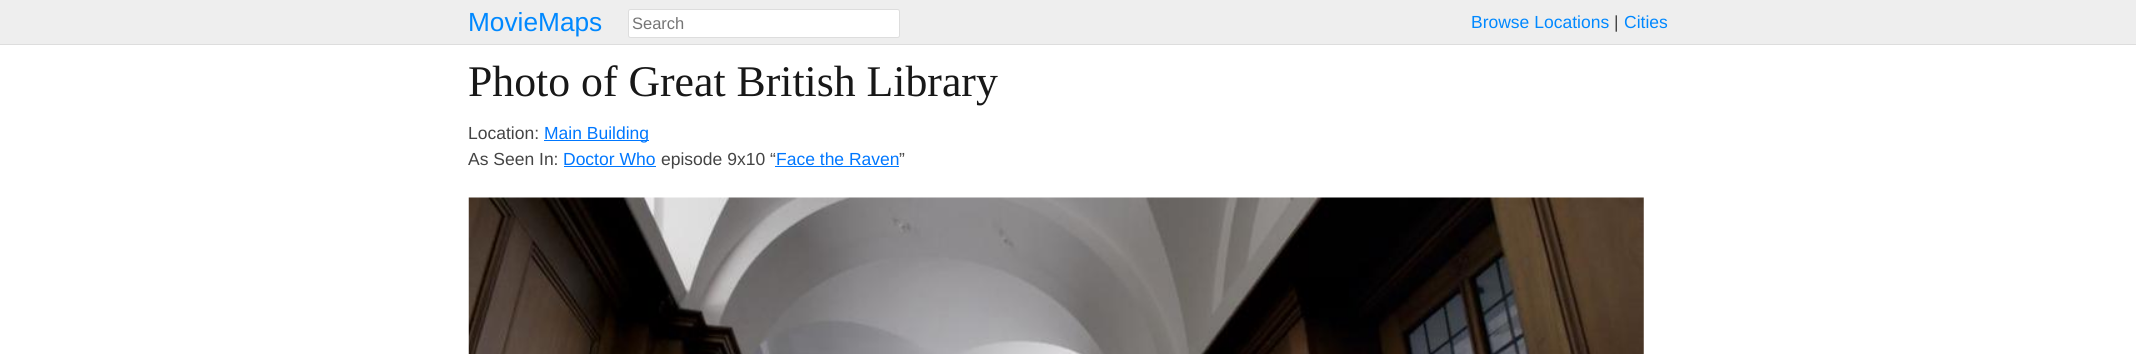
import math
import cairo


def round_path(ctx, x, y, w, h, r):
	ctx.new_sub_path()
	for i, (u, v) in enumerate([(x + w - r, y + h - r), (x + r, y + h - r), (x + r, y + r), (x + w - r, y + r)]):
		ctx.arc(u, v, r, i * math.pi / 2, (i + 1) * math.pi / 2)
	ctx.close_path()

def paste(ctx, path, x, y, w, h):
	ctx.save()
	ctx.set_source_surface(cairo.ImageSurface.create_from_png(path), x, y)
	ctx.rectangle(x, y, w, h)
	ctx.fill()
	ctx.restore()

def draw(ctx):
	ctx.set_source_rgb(1, 1, 1)
	ctx.paint()
	ctx.set_source_rgb(0.933, 0.933, 0.933)
	ctx.rectangle(0, 0, 2136, 44)
	ctx.fill()
	ctx.set_source_rgb(0.867, 0.867, 0.867)
	ctx.rectangle(0, 44, 2136, 1)
	ctx.fill()
	ctx.select_font_face('Liberation Sans')
	ctx.set_font_size(26.25)
	ctx.set_source_rgb(0, 0.533, 1)
	ctx.move_to(468, 31)
	ctx.show_text('MovieMaps')
	ctx.set_source_rgb(1, 1, 1)
	round_path(ctx, 628.5, 9.5, 271, 28, 2)
	ctx.fill_preserve()
	ctx.set_source_rgb(0.867, 0.867, 0.867)
	ctx.set_line_width(1)
	ctx.stroke()
	ctx.set_font_size(16.5)
	ctx.set_source_rgb(0.459, 0.459, 0.459)
	ctx.move_to(632, 29)
	ctx.show_text('Search')
	ctx.set_font_size(17.5)
	ctx.set_source_rgb(0, 0.533, 1)
	ctx.move_to(1471, 28)
	ctx.show_text('Browse Locations')
	ctx.set_source_rgb(0.267, 0.267, 0.267)
	ctx.move_to(1614, 28)
	ctx.show_text('|')
	ctx.set_source_rgb(0, 0.533, 1)
	ctx.move_to(1624, 28)
	ctx.show_text('Cities')
	ctx.select_font_face('Liberation Serif')
	ctx.set_font_size(43.75)
	ctx.set_source_rgb(0.094, 0.094, 0.094)
	ctx.move_to(468, 96)
	ctx.show_text('Photo of Great British Library')
	ctx.select_font_face('Liberation Sans')
	ctx.set_font_size(17.5)
	ctx.set_source_rgb(0.267, 0.267, 0.267)
	ctx.move_to(468, 139)
	ctx.show_text('Location:')
	ctx.set_source_rgb(0, 0.467, 1)
	ctx.rectangle(544, 140, 105, 1)
	ctx.fill()
	ctx.move_to(544, 139)
	ctx.show_text('Main Building')
	ctx.set_source_rgb(0.267, 0.267, 0.267)
	ctx.move_to(468, 165)
	ctx.show_text('As Seen In:')
	ctx.set_source_rgb(0, 0.467, 1)
	ctx.move_to(563, 165)
	ctx.show_text('Doctor Who')
	ctx.rectangle(564, 166, 92, 1)
	ctx.fill()
	ctx.set_source_rgb(0.267, 0.267, 0.267)
	ctx.move_to(661, 165)
	ctx.show_text('episode 9x10 “')
	ctx.set_source_rgb(0, 0.467, 1)
	ctx.move_to(776, 165)
	ctx.show_text('Face the Raven')
	ctx.rectangle(775, 166, 124, 1)
	ctx.fill()
	ctx.set_source_rgb(0.267, 0.267, 0.267)
	ctx.move_to(899, 165)
	ctx.show_text('”')
	paste(ctx, 'media/1.png', 468, 197, 1176, 157)


surface = cairo.ImageSurface(cairo.FORMAT_RGB24, 2136, 354)
ctx = cairo.Context(surface)
options = cairo.FontOptions()
options.set_hint_metrics(cairo.HINT_METRICS_OFF)
options.set_hint_style(cairo.HINT_STYLE_NONE)
ctx.set_font_options(options)
ctx.set_miter_limit(4)
draw(ctx)
surface.write_to_png('image.png')
